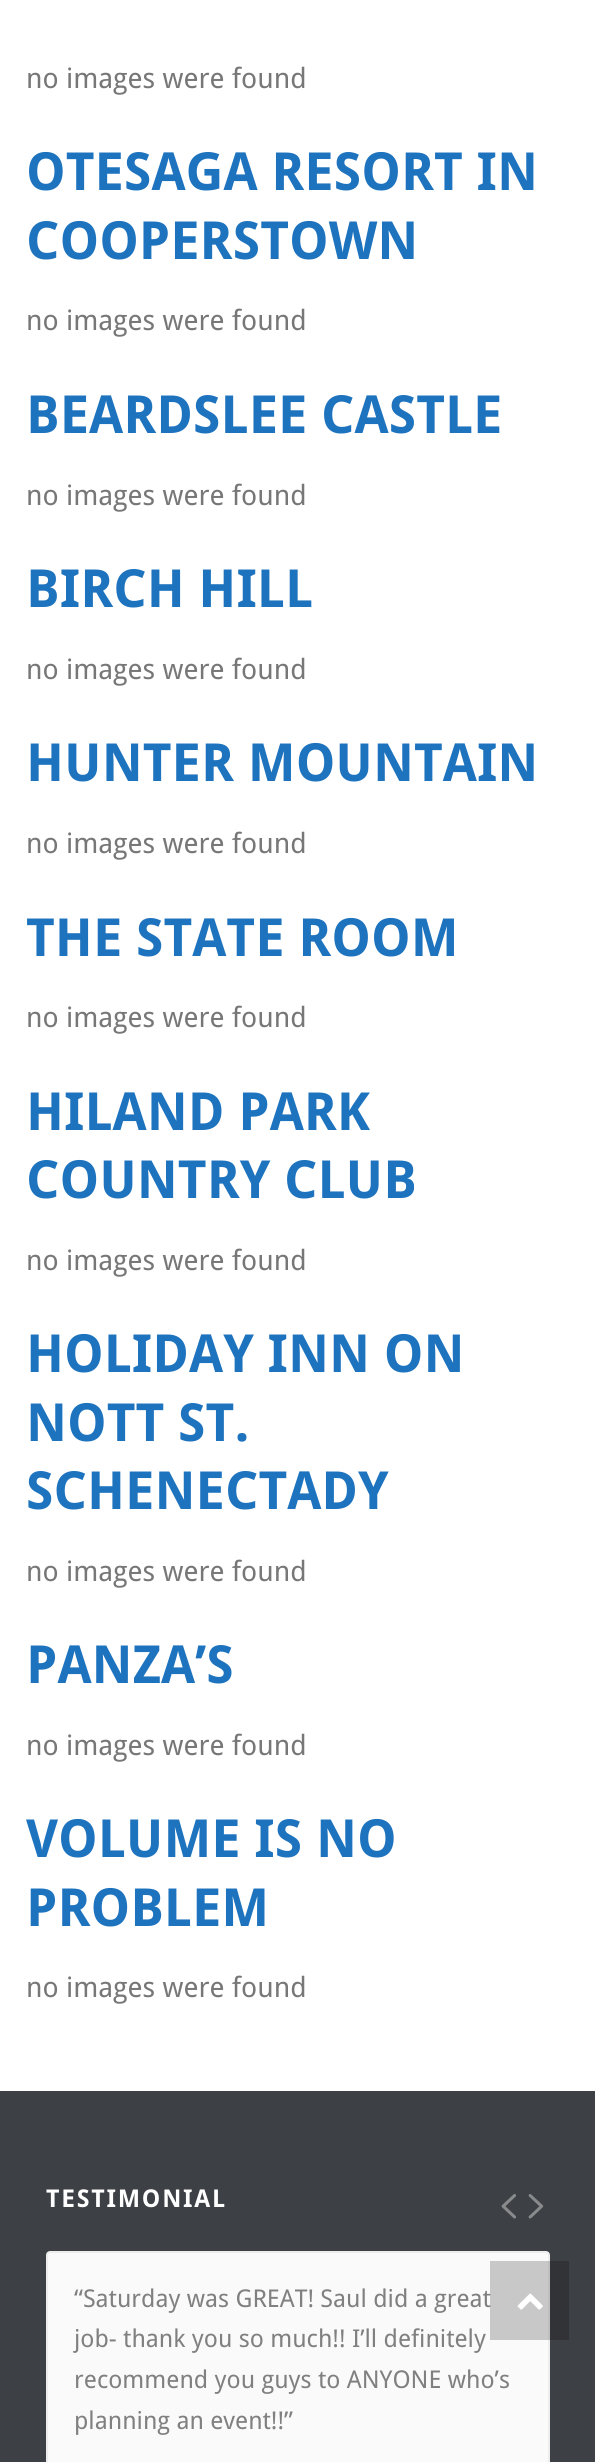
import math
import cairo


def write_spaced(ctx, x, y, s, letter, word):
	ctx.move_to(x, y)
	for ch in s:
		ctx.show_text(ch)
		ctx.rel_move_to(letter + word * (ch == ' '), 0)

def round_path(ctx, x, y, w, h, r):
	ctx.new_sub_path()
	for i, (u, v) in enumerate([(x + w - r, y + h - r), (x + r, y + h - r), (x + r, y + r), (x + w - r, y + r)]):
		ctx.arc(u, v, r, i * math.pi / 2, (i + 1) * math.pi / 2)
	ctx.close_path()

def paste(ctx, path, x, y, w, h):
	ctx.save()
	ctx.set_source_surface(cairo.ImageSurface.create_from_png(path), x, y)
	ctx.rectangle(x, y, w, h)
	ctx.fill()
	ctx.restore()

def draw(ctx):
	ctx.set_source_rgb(1, 1, 1)
	ctx.paint()
	ctx.select_font_face('Droid Sans')
	ctx.set_font_size(28)
	ctx.set_source_rgb(0.467, 0.467, 0.467)
	ctx.move_to(26, 88)
	ctx.show_text('no images were found')
	ctx.select_font_face('Droid Sans', cairo.FONT_SLANT_NORMAL, cairo.FONT_WEIGHT_BOLD)
	ctx.set_font_size(52.5)
	ctx.set_source_rgb(0.118, 0.451, 0.745)
	ctx.move_to(26, 190)
	ctx.show_text('OTESAGA RESORT IN')
	ctx.move_to(26, 259)
	ctx.show_text('COOPERSTOWN')
	ctx.select_font_face('Droid Sans')
	ctx.set_font_size(28)
	ctx.set_source_rgb(0.467, 0.467, 0.467)
	ctx.move_to(26, 330)
	ctx.show_text('no images were found')
	ctx.select_font_face('Droid Sans', cairo.FONT_SLANT_NORMAL, cairo.FONT_WEIGHT_BOLD)
	ctx.set_font_size(52.5)
	ctx.set_source_rgb(0.118, 0.451, 0.745)
	ctx.move_to(26, 433)
	ctx.show_text('BEARDSLEE CASTLE')
	ctx.select_font_face('Droid Sans')
	ctx.set_font_size(28)
	ctx.set_source_rgb(0.467, 0.467, 0.467)
	ctx.move_to(26, 505)
	ctx.show_text('no images were found')
	ctx.select_font_face('Droid Sans', cairo.FONT_SLANT_NORMAL, cairo.FONT_WEIGHT_BOLD)
	ctx.set_font_size(52.5)
	ctx.set_source_rgb(0.118, 0.451, 0.745)
	ctx.move_to(26, 607)
	ctx.show_text('BIRCH HILL')
	ctx.select_font_face('Droid Sans')
	ctx.set_font_size(28)
	ctx.set_source_rgb(0.467, 0.467, 0.467)
	ctx.move_to(26, 679)
	ctx.show_text('no images were found')
	ctx.select_font_face('Droid Sans', cairo.FONT_SLANT_NORMAL, cairo.FONT_WEIGHT_BOLD)
	ctx.set_font_size(52.5)
	ctx.set_source_rgb(0.118, 0.451, 0.745)
	ctx.move_to(26, 781)
	ctx.show_text('HUNTER MOUNTAIN')
	ctx.select_font_face('Droid Sans')
	ctx.set_font_size(28)
	ctx.set_source_rgb(0.467, 0.467, 0.467)
	ctx.move_to(26, 853)
	ctx.show_text('no images were found')
	ctx.select_font_face('Droid Sans', cairo.FONT_SLANT_NORMAL, cairo.FONT_WEIGHT_BOLD)
	ctx.set_font_size(52.5)
	ctx.set_source_rgb(0.118, 0.451, 0.745)
	ctx.move_to(26, 956)
	ctx.show_text('THE STATE ROOM')
	ctx.select_font_face('Droid Sans')
	ctx.set_font_size(28)
	ctx.set_source_rgb(0.467, 0.467, 0.467)
	ctx.move_to(26, 1027)
	ctx.show_text('no images were found')
	ctx.select_font_face('Droid Sans', cairo.FONT_SLANT_NORMAL, cairo.FONT_WEIGHT_BOLD)
	ctx.set_font_size(52.5)
	ctx.set_source_rgb(0.118, 0.451, 0.745)
	ctx.move_to(26, 1130)
	ctx.show_text('HILAND PARK')
	ctx.move_to(26, 1198)
	ctx.show_text('COUNTRY CLUB')
	ctx.select_font_face('Droid Sans')
	ctx.set_font_size(28)
	ctx.set_source_rgb(0.467, 0.467, 0.467)
	ctx.move_to(26, 1270)
	ctx.show_text('no images were found')
	ctx.select_font_face('Droid Sans', cairo.FONT_SLANT_NORMAL, cairo.FONT_WEIGHT_BOLD)
	ctx.set_font_size(52.5)
	ctx.set_source_rgb(0.118, 0.451, 0.745)
	for x, y, s in [
		(26, 1372, 'HOLIDAY INN ON'),
		(26, 1441, 'NOTT ST.'),
		(26, 1509, 'SCHENECTADY'),
	]:
		ctx.move_to(x, y)
		ctx.show_text(s)
	ctx.select_font_face('Droid Sans')
	ctx.set_font_size(28)
	ctx.set_source_rgb(0.467, 0.467, 0.467)
	ctx.move_to(26, 1581)
	ctx.show_text('no images were found')
	ctx.select_font_face('Droid Sans', cairo.FONT_SLANT_NORMAL, cairo.FONT_WEIGHT_BOLD)
	ctx.set_font_size(52.5)
	ctx.set_source_rgb(0.118, 0.451, 0.745)
	ctx.move_to(26, 1683)
	ctx.show_text('PANZA’S')
	ctx.select_font_face('Droid Sans')
	ctx.set_font_size(28)
	ctx.set_source_rgb(0.467, 0.467, 0.467)
	ctx.move_to(26, 1755)
	ctx.show_text('no images were found')
	ctx.select_font_face('Droid Sans', cairo.FONT_SLANT_NORMAL, cairo.FONT_WEIGHT_BOLD)
	ctx.set_font_size(52.5)
	ctx.set_source_rgb(0.118, 0.451, 0.745)
	ctx.move_to(26, 1857)
	ctx.show_text('VOLUME IS NO')
	ctx.move_to(26, 1926)
	ctx.show_text('PROBLEM')
	ctx.select_font_face('Droid Sans')
	ctx.set_font_size(28)
	ctx.set_source_rgb(0.467, 0.467, 0.467)
	ctx.move_to(26, 1997)
	ctx.show_text('no images were found')
	ctx.set_source_rgb(0.239, 0.251, 0.271)
	ctx.rectangle(0, 2091, 595, 371)
	ctx.fill()
	ctx.select_font_face('Droid Sans', cairo.FONT_SLANT_NORMAL, cairo.FONT_WEIGHT_BOLD)
	ctx.set_font_size(24.5)
	ctx.set_source_rgb(1, 1, 1)
	write_spaced(ctx, 46, 2207, 'TESTIMONIAL', 1.75, 0)
	paste(ctx, 'media/1.png', 501, 2194, 15, 25)
	paste(ctx, 'media/2.png', 528, 2194, 16, 25)
	ctx.set_source_rgb(0.98, 0.98, 0.98)
	round_path(ctx, 47, 2252, 502, 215, 3)
	ctx.fill_preserve()
	ctx.set_source_rgb(0.929, 0.929, 0.929)
	ctx.stroke()
	ctx.select_font_face('Droid Sans')
	ctx.set_source_rgb(0.502, 0.502, 0.502)
	for x, y, s in [
		(74, 2307, '“Saturday was GREAT! Saul did a great'),
		(74, 2347, 'job- thank you so much!! I’ll definitely'),
		(74, 2388, 'recommend you guys to ANYONE who’s'),
		(74, 2429, 'planning an event!!”'),
	]:
		ctx.move_to(x, y)
		ctx.show_text(s)
	ctx.set_source_rgba(0, 0, 0, 0.2)
	ctx.rectangle(490, 2261, 79, 79)
	ctx.fill()
	paste(ctx, 'media/3.png', 517, 2293, 26, 17)


surface = cairo.ImageSurface(cairo.FORMAT_RGB24, 595, 2462)
ctx = cairo.Context(surface)
options = cairo.FontOptions()
options.set_hint_metrics(cairo.HINT_METRICS_OFF)
options.set_hint_style(cairo.HINT_STYLE_NONE)
ctx.set_font_options(options)
ctx.set_miter_limit(4)
draw(ctx)
surface.write_to_png('image.png')
